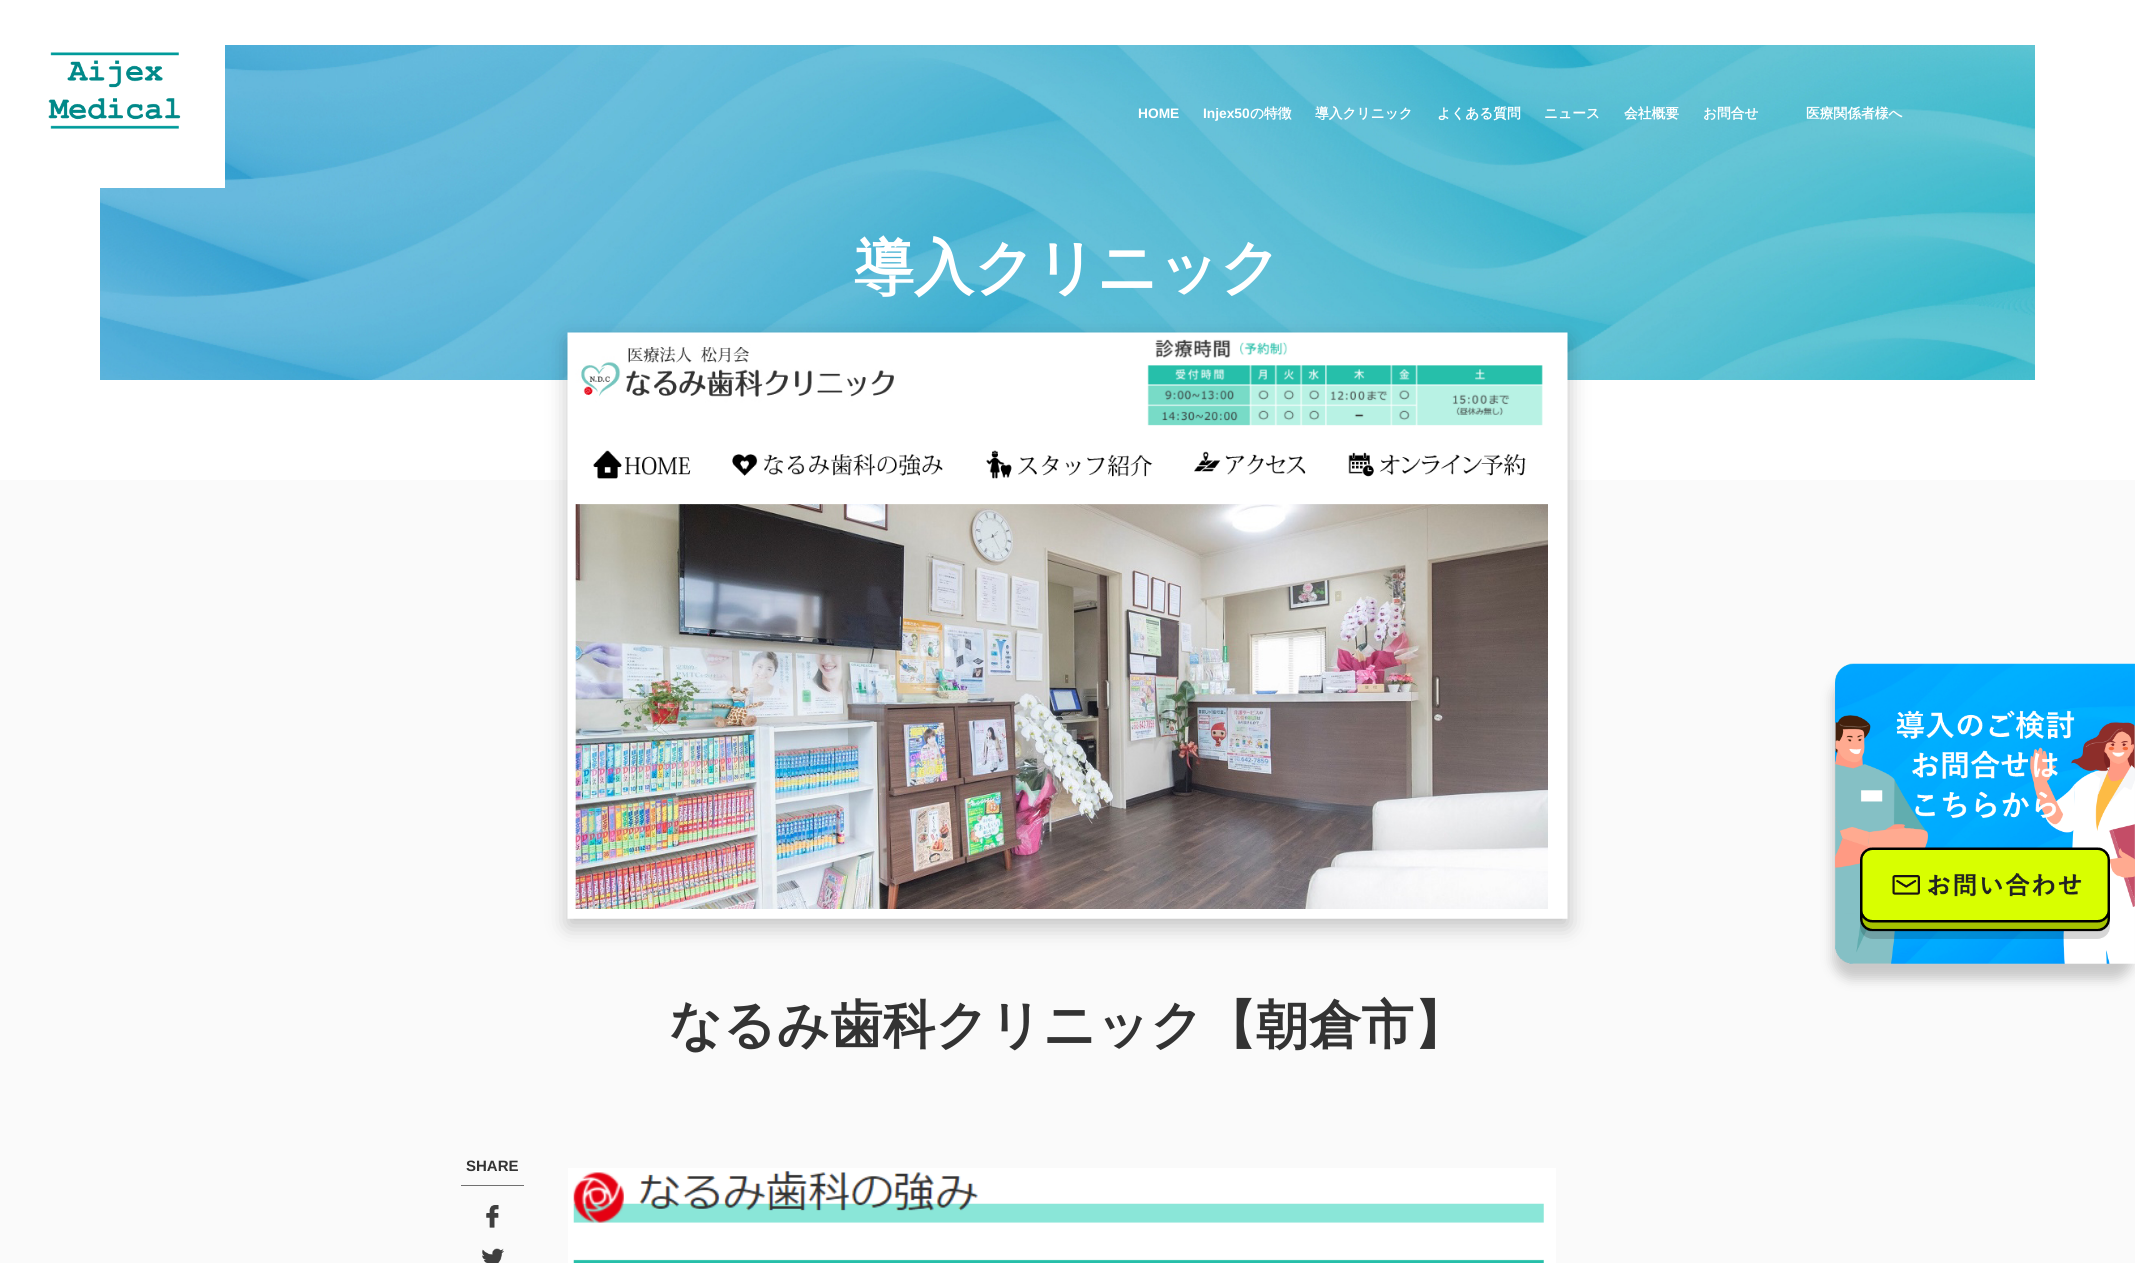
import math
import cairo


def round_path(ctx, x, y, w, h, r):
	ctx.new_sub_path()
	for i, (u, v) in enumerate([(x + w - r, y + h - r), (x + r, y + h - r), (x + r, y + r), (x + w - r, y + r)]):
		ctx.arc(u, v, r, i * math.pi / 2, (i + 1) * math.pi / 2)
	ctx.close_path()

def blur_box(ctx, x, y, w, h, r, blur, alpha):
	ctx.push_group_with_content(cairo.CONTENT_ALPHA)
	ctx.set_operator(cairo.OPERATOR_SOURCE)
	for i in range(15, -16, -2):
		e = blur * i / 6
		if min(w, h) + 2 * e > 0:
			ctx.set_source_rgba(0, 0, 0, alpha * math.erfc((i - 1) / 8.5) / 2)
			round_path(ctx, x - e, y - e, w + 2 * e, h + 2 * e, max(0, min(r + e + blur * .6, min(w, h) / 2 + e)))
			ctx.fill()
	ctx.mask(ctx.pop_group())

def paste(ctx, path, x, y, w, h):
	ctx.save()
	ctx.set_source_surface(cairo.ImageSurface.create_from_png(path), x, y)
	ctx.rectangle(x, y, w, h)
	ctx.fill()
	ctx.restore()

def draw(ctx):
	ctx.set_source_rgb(1, 1, 1)
	ctx.paint()
	paste(ctx, 'media/2.png', 100, 45, 1935, 335)
	ctx.set_source_rgb(1, 1, 1)
	ctx.rectangle(100, 45, 125, 143)
	ctx.fill()
	paste(ctx, 'media/1.png', 48, 52, 133, 77)
	ctx.select_font_face('Liberation Sans', cairo.FONT_SLANT_NORMAL, cairo.FONT_WEIGHT_BOLD)
	ctx.set_font_size(13.75)
	ctx.move_to(1138, 118)
	ctx.show_text('HOME')
	ctx.move_to(1203, 118)
	ctx.show_text('Injex50')
	ctx.select_font_face('WenQuanYi Zen Hei', cairo.FONT_SLANT_NORMAL, cairo.FONT_WEIGHT_BOLD)
	for x, y, s in [
		(1250, 118, 'の特徴'),
		(1315, 118, '導入クリニック'),
		(1437, 118, 'よくある質問'),
		(1544, 118, 'ニュース'),
		(1624, 118, '会社概要'),
		(1703, 118, 'お問合せ'),
		(1806, 118, '医療関係者様へ'),
	]:
		ctx.move_to(x, y)
		ctx.show_text(s)
	ctx.set_font_size(60)
	ctx.move_to(854, 288)
	ctx.show_text('導入クリニック')
	ctx.set_source_rgb(0.98, 0.98, 0.98)
	ctx.rectangle(0, 480, 2135, 783)
	ctx.fill()
	ctx.set_source_rgb(0, 0, 0)
	blur_box(ctx, 568, 340, 1000, 586, 0, 11, 0.24)
	paste(ctx, 'media/3.png', 567, 332, 1001, 587)
	ctx.set_font_size(52.5)
	ctx.set_source_rgb(0.2, 0.2, 0.2)
	ctx.move_to(669, 1043)
	ctx.show_text('なるみ歯科クリニック【朝倉市】')
	ctx.set_source_rgb(0.439, 0.439, 0.439)
	ctx.rectangle(461, 1185, 63, 1)
	ctx.fill()
	ctx.select_font_face('Liberation Sans', cairo.FONT_SLANT_NORMAL, cairo.FONT_WEIGHT_BOLD)
	ctx.set_font_size(15)
	ctx.set_source_rgb(0.2, 0.2, 0.2)
	ctx.move_to(466, 1171)
	ctx.show_text('SHARE')
	paste(ctx, 'media/4.png', 486, 1205, 13, 23)
	paste(ctx, 'media/5.png', 482, 1248, 22, 15)
	paste(ctx, 'media/6.png', 568, 1168, 988, 95)
	ctx.set_source_rgb(0, 0, 0)
	blur_box(ctx, 1833, 679, 300, 300, 19, 6, 0.2)
	paste(ctx, 'media/7.png', 1835, 663, 300, 301)


surface = cairo.ImageSurface(cairo.FORMAT_RGB24, 2135, 1263)
ctx = cairo.Context(surface)
options = cairo.FontOptions()
options.set_hint_metrics(cairo.HINT_METRICS_OFF)
options.set_hint_style(cairo.HINT_STYLE_NONE)
ctx.set_font_options(options)
ctx.set_miter_limit(4)
draw(ctx)
surface.write_to_png('image.png')
